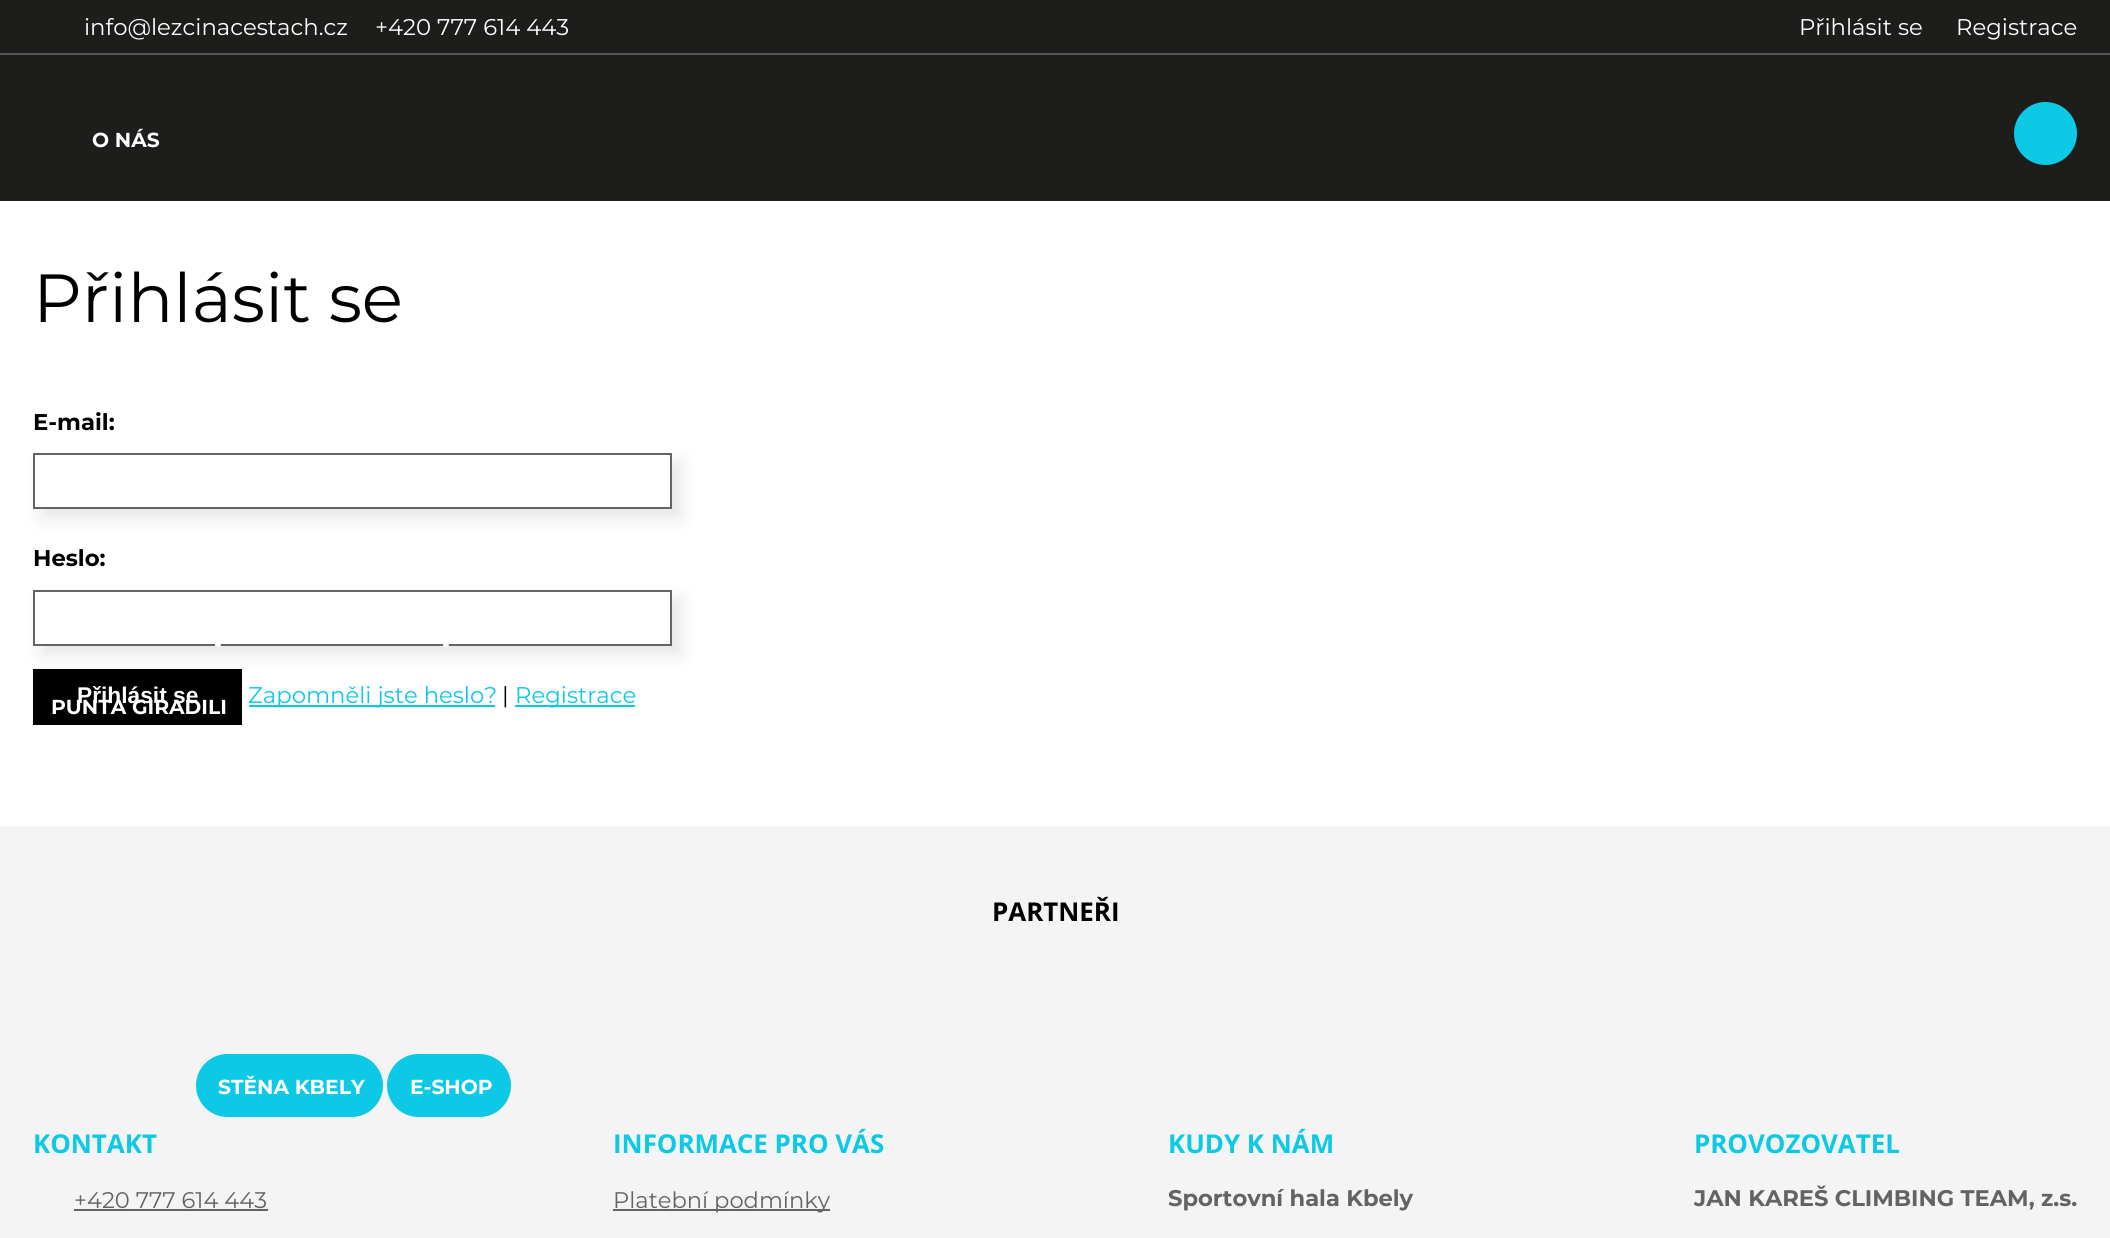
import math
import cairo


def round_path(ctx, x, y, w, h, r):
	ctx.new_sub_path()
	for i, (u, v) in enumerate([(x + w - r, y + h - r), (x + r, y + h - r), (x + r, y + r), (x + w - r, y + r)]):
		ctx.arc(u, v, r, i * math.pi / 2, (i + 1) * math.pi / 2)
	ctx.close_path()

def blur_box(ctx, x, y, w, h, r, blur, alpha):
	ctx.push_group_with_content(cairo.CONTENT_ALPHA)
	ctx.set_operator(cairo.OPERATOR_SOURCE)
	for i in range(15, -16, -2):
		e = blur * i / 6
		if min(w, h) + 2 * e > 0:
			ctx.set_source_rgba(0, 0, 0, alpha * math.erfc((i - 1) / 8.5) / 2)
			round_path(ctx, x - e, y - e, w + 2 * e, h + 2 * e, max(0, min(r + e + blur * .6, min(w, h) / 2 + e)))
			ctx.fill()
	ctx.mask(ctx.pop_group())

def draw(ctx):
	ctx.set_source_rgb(1, 1, 1)
	ctx.paint()
	ctx.set_source_rgb(0.114, 0.114, 0.106)
	ctx.rectangle(0, 0, 2110, 201)
	ctx.fill()
	ctx.set_source_rgb(0.337, 0.337, 0.337)
	ctx.rectangle(0, 53, 2110, 2)
	ctx.fill()
	ctx.select_font_face('Montserrat')
	ctx.set_font_size(22.75)
	ctx.set_source_rgb(1, 1, 1)
	for x, y, s in [
		(84, 35, 'info@lezcinacestach.cz'),
		(375, 35, '+420 777 614 443'),
		(1799, 35, 'Přihlásit se'),
		(1956, 35, 'Registrace'),
	]:
		ctx.move_to(x, y)
		ctx.show_text(s)
	ctx.select_font_face('Montserrat', cairo.FONT_SLANT_NORMAL, cairo.FONT_WEIGHT_BOLD)
	ctx.set_font_size(20.25)
	ctx.move_to(92, 147)
	ctx.show_text('O NÁS')
	ctx.set_source_rgb(0, 0, 0)
	blur_box(ctx, 42, 599, 639, 56, 0, 9, 0.1)
	ctx.set_source_rgb(1, 1, 1)
	ctx.rectangle(34, 591, 637, 54)
	ctx.fill_preserve()
	ctx.set_source_rgb(0.388, 0.392, 0.4)
	ctx.stroke()
	ctx.set_source_rgb(1, 1, 1)
	ctx.move_to(214, 651)
	ctx.show_text('-')
	ctx.move_to(442, 651)
	ctx.show_text('-')
	ctx.set_source_rgb(0, 0, 0)
	ctx.rectangle(33, 669, 209, 56)
	ctx.fill()
	ctx.set_source_rgb(1, 1, 1)
	ctx.move_to(51, 714)
	ctx.show_text('PUNTA GIRADILI')
	ctx.set_source_rgb(0.957, 0.957, 0.957)
	ctx.rectangle(0, 826, 2110, 412)
	ctx.fill()
	ctx.set_source_rgb(0.051, 0.788, 0.898)
	round_path(ctx, 197, 1055, 185, 61, 30.5)
	ctx.fill_preserve()
	ctx.stroke()
	ctx.set_source_rgb(1, 1, 1)
	ctx.move_to(218, 1094)
	ctx.show_text('STĚNA KBELY')
	ctx.set_source_rgb(0.051, 0.788, 0.898)
	round_path(ctx, 388, 1055, 122, 61, 30.5)
	ctx.fill_preserve()
	ctx.stroke()
	ctx.set_source_rgb(1, 1, 1)
	ctx.move_to(410, 1094)
	ctx.show_text('E-SHOP')
	ctx.set_source_rgb(0.051, 0.788, 0.898)
	ctx.new_path()
	ctx.arc(2045.5, 133.5, 31.5, 0, 2 * math.pi)
	ctx.fill()
	ctx.select_font_face('Montserrat')
	ctx.set_font_size(68)
	ctx.set_source_rgb(0, 0, 0)
	ctx.move_to(33, 322)
	ctx.show_text('Přihlásit se')
	ctx.select_font_face('Montserrat', cairo.FONT_SLANT_NORMAL, cairo.FONT_WEIGHT_BOLD)
	ctx.set_font_size(22.75)
	ctx.move_to(33, 430)
	ctx.show_text('E-mail:')
	ctx.save()
	ctx.set_fill_rule(cairo.FILL_RULE_EVEN_ODD)
	ctx.new_path()
	ctx.move_to(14, 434)
	ctx.line_to(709, 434)
	ctx.line_to(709, 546)
	ctx.line_to(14, 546)
	ctx.close_path()
	ctx.move_to(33, 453)
	ctx.line_to(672, 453)
	ctx.line_to(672, 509)
	ctx.line_to(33, 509)
	ctx.close_path()
	ctx.clip()
	ctx.set_source_rgb(0, 0, 0)
	blur_box(ctx, 42, 462, 639, 56, 0, 9, 0.1)
	ctx.restore()
	ctx.rectangle(34, 454, 637, 54)
	ctx.set_source_rgb(0.388, 0.392, 0.4)
	ctx.stroke()
	ctx.set_source_rgb(0, 0, 0)
	ctx.move_to(33, 566)
	ctx.show_text('Heslo:')
	ctx.select_font_face('Liberation Sans', cairo.FONT_SLANT_NORMAL, cairo.FONT_WEIGHT_BOLD)
	ctx.set_source_rgb(1, 1, 1)
	ctx.move_to(77, 703)
	ctx.show_text('Přihlásit se')
	ctx.set_source_rgb(0.051, 0.788, 0.898)
	ctx.rectangle(249, 705, 246, 2)
	ctx.fill()
	ctx.select_font_face('Montserrat')
	ctx.move_to(248, 703)
	ctx.show_text('Zapomněli jste heslo?')
	ctx.set_source_rgb(0, 0, 0)
	ctx.move_to(502, 703)
	ctx.show_text('|')
	ctx.set_source_rgb(0.051, 0.788, 0.898)
	ctx.rectangle(515, 705, 120, 2)
	ctx.fill()
	ctx.move_to(515, 703)
	ctx.show_text('Registrace')
	ctx.select_font_face('Open Sans', cairo.FONT_SLANT_NORMAL, cairo.FONT_WEIGHT_BOLD)
	ctx.set_font_size(25.9)
	ctx.set_source_rgb(0, 0, 0)
	ctx.move_to(992, 921)
	ctx.show_text('PARTNEŘI')
	ctx.set_source_rgb(0.051, 0.788, 0.898)
	ctx.move_to(33, 1153)
	ctx.show_text('KONTAKT')
	ctx.select_font_face('Montserrat')
	ctx.set_font_size(22.6)
	ctx.set_source_rgb(0.388, 0.388, 0.388)
	ctx.move_to(74, 1208)
	ctx.show_text('+420 777 614 443')
	ctx.rectangle(74, 1209, 194, 2)
	ctx.fill()
	ctx.select_font_face('Open Sans', cairo.FONT_SLANT_NORMAL, cairo.FONT_WEIGHT_BOLD)
	ctx.set_font_size(25.9)
	ctx.set_source_rgb(0.051, 0.788, 0.898)
	ctx.move_to(613, 1153)
	ctx.show_text('INFORMACE PRO VÁS')
	ctx.set_source_rgb(0.388, 0.388, 0.388)
	ctx.rectangle(613, 1209, 217, 2)
	ctx.fill()
	ctx.select_font_face('Montserrat')
	ctx.set_font_size(22.6)
	ctx.move_to(613, 1208)
	ctx.show_text('Platební podmínky')
	ctx.select_font_face('Open Sans', cairo.FONT_SLANT_NORMAL, cairo.FONT_WEIGHT_BOLD)
	ctx.set_font_size(25.9)
	ctx.set_source_rgb(0.051, 0.788, 0.898)
	ctx.move_to(1168, 1153)
	ctx.show_text('KUDY K NÁM')
	ctx.select_font_face('Montserrat', cairo.FONT_SLANT_NORMAL, cairo.FONT_WEIGHT_BOLD)
	ctx.set_font_size(22.6)
	ctx.set_source_rgb(0.388, 0.388, 0.388)
	ctx.move_to(1168, 1206)
	ctx.show_text('Sportovní hala Kbely')
	ctx.select_font_face('Open Sans', cairo.FONT_SLANT_NORMAL, cairo.FONT_WEIGHT_BOLD)
	ctx.set_font_size(25.9)
	ctx.set_source_rgb(0.051, 0.788, 0.898)
	ctx.move_to(1694, 1153)
	ctx.show_text('PROVOZOVATEL')
	ctx.select_font_face('Montserrat', cairo.FONT_SLANT_NORMAL, cairo.FONT_WEIGHT_BOLD)
	ctx.set_font_size(22.6)
	ctx.set_source_rgb(0.388, 0.388, 0.388)
	ctx.move_to(1694, 1206)
	ctx.show_text('JAN KAREŠ CLIMBING TEAM, z.s.')


surface = cairo.ImageSurface(cairo.FORMAT_RGB24, 2110, 1238)
ctx = cairo.Context(surface)
options = cairo.FontOptions()
options.set_hint_metrics(cairo.HINT_METRICS_OFF)
options.set_hint_style(cairo.HINT_STYLE_NONE)
ctx.set_font_options(options)
ctx.set_miter_limit(4)
draw(ctx)
surface.write_to_png('image.png')
